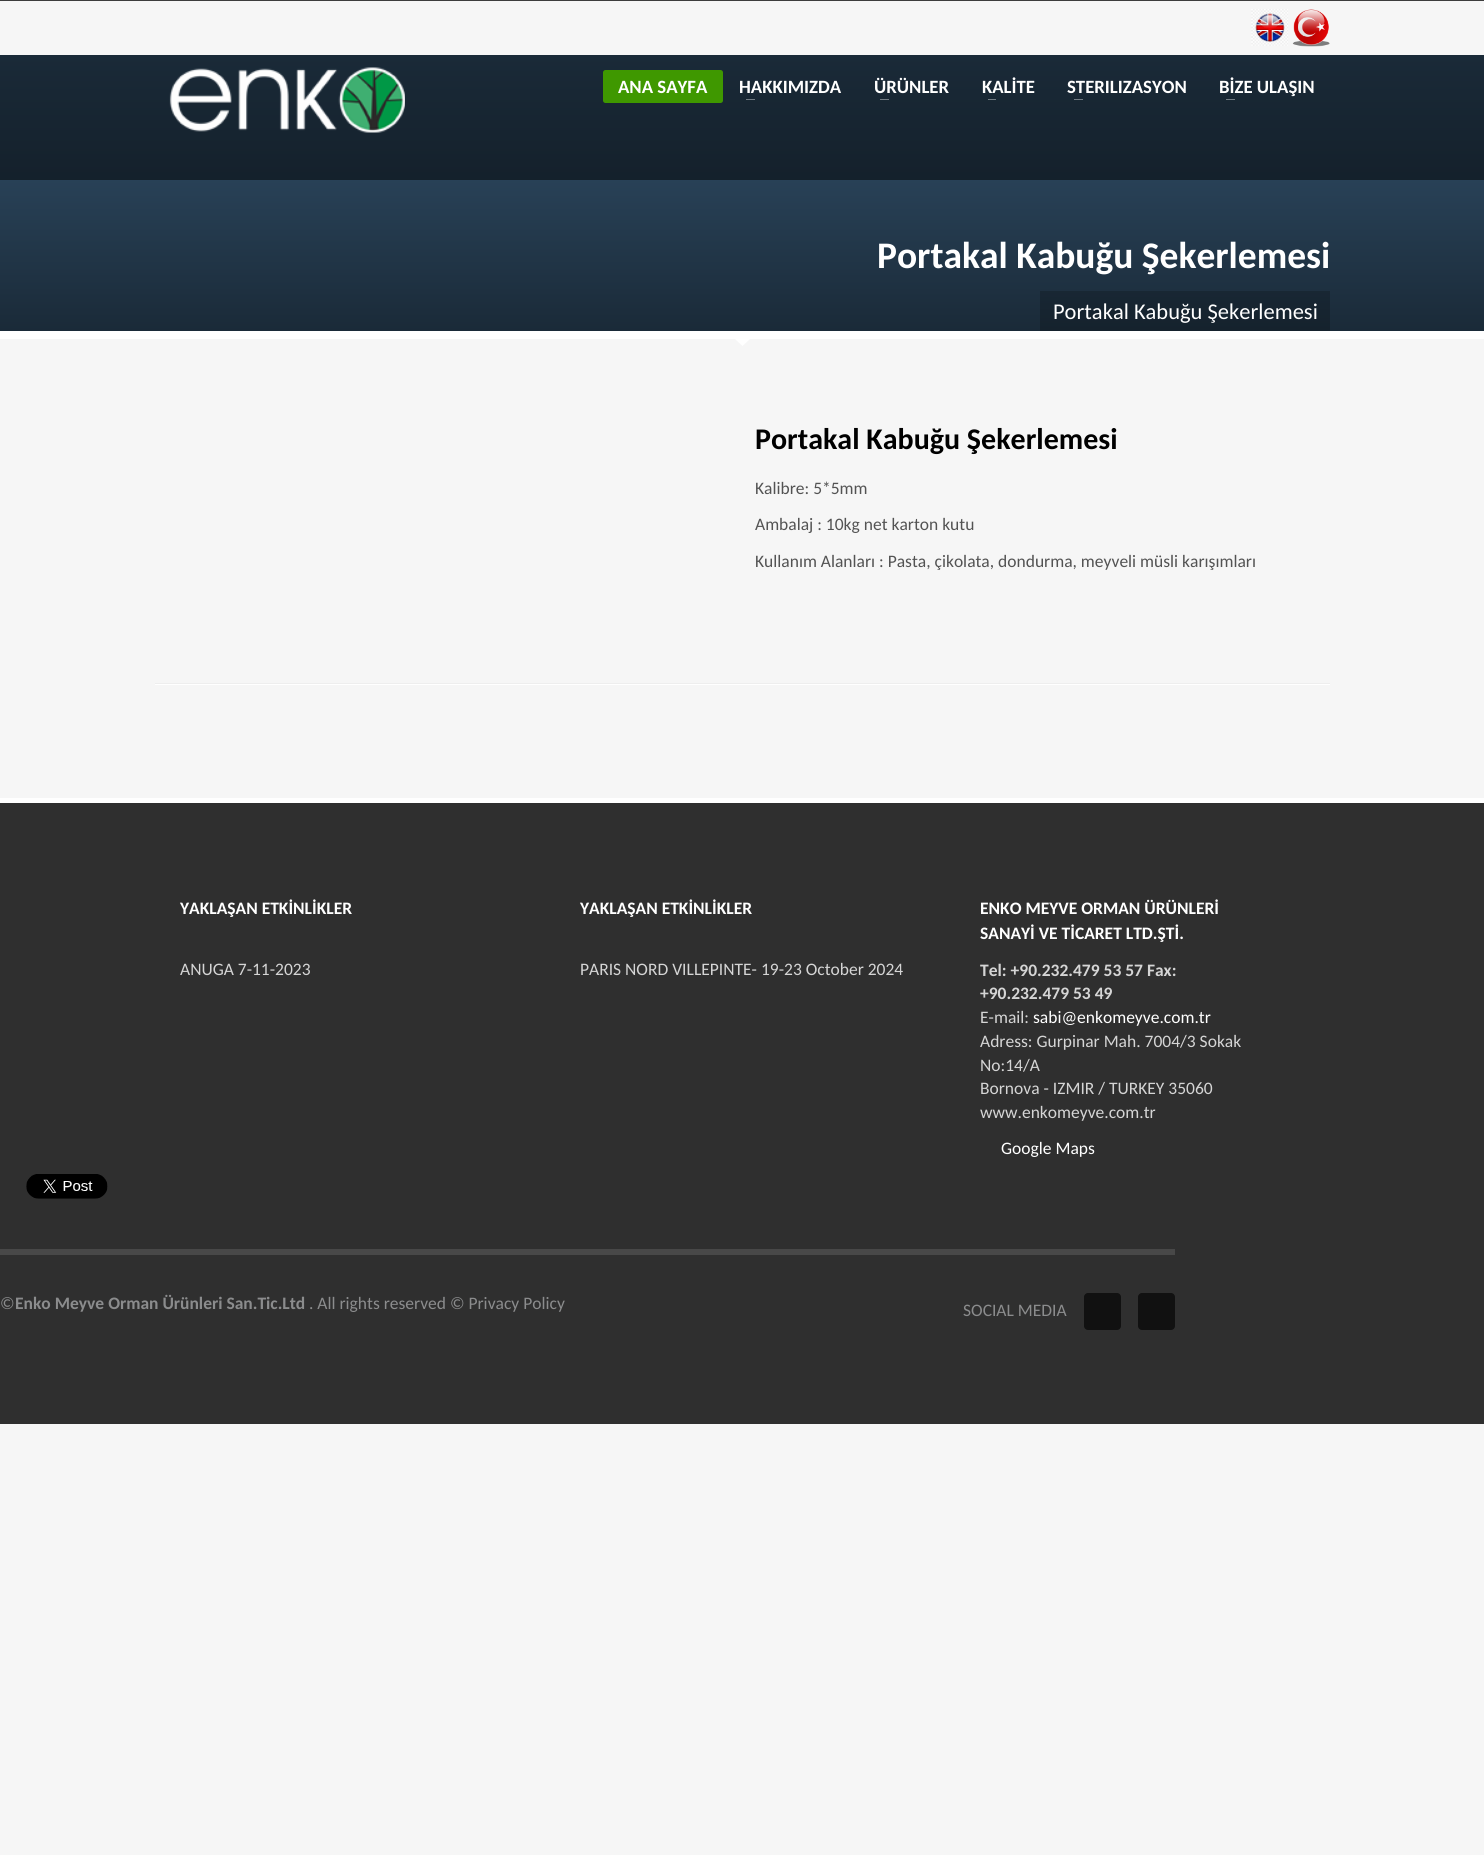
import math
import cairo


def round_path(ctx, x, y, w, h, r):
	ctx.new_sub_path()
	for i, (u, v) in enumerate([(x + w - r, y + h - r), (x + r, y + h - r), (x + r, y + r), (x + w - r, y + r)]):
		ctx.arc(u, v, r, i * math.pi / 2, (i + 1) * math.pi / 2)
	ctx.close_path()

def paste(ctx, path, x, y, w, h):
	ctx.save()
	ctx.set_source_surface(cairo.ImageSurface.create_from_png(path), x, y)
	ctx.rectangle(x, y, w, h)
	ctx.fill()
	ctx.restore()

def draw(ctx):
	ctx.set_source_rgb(0.961, 0.961, 0.961)
	ctx.paint()
	ctx.set_source_rgb(0.239, 0.239, 0.239)
	ctx.rectangle(0, 0, 1484, 1)
	ctx.fill()
	paste(ctx, 'media/1.png', 1251, 9, 37, 37)
	paste(ctx, 'media/2.png', 1292, 9, 38, 38)
	gradient = cairo.LinearGradient(743, 55, 743, 331)
	gradient.add_color_stop_rgba(0, 0.102, 0.165, 0.22, 1)
	gradient.add_color_stop_rgba(1, 0.051, 0.082, 0.11, 1)
	ctx.set_source(gradient)
	ctx.rectangle(0, 55, 1484, 125)
	ctx.fill()
	paste(ctx, 'media/3.png', 169, 67, 236, 66)
	ctx.set_source_rgb(0.247, 0.596, 0)
	round_path(ctx, 603, 70, 120, 33, 2.5)
	ctx.fill()
	ctx.select_font_face('Carlito', cairo.FONT_SLANT_NORMAL, cairo.FONT_WEIGHT_BOLD)
	ctx.set_font_size(18.75)
	ctx.set_source_rgb(1, 1, 1)
	ctx.move_to(618, 93)
	ctx.show_text('ANA SAYFA')
	ctx.move_to(739, 93)
	ctx.show_text('HAKKIMIZDA')
	ctx.set_source_rgb(0.455, 0.49, 0.522)
	ctx.rectangle(746, 99, 9, 1)
	ctx.fill()
	ctx.set_source_rgb(1, 1, 1)
	ctx.move_to(874, 93)
	ctx.show_text('ÜRÜNLER')
	ctx.set_source_rgb(0.455, 0.49, 0.522)
	ctx.rectangle(880, 99, 9, 1)
	ctx.fill()
	ctx.set_source_rgb(1, 1, 1)
	ctx.move_to(982, 93)
	ctx.show_text('KALİTE')
	ctx.set_source_rgb(0.455, 0.49, 0.522)
	ctx.rectangle(988, 99, 8, 1)
	ctx.fill()
	ctx.set_source_rgb(1, 1, 1)
	ctx.move_to(1067, 93)
	ctx.show_text('STERILIZASYON')
	ctx.set_source_rgb(0.455, 0.49, 0.522)
	ctx.rectangle(1074, 99, 9, 1)
	ctx.fill()
	ctx.set_source_rgb(1, 1, 1)
	ctx.move_to(1219, 93)
	ctx.show_text('BİZE ULAŞIN')
	ctx.set_source_rgb(0.455, 0.49, 0.522)
	ctx.rectangle(1226, 99, 9, 1)
	ctx.fill()
	gradient = cairo.LinearGradient(743, 55, 743, 331)
	gradient.add_color_stop_rgba(0, 0.204, 0.329, 0.439, 1)
	gradient.add_color_stop_rgba(1, 0.102, 0.165, 0.22, 1)
	ctx.set_source(gradient)
	ctx.rectangle(0, 180, 1484, 151)
	ctx.fill()
	gradient = cairo.LinearGradient(743, 55, 743, 331)
	gradient.add_color_stop_rgba(0, 0.165, 0.263, 0.353, 1)
	gradient.add_color_stop_rgba(1, 0.082, 0.133, 0.176, 1)
	ctx.set_source(gradient)
	ctx.rectangle(1040, 291, 290, 40)
	ctx.fill()
	ctx.set_source_rgb(1, 1, 1)
	ctx.rectangle(0, 331, 1484, 8)
	ctx.fill()
	ctx.set_font_size(37.5)
	ctx.move_to(877, 268)
	ctx.show_text('Portakal Kabuğu Şekerlemesi')
	ctx.select_font_face('Carlito')
	ctx.set_font_size(22.5)
	ctx.move_to(1053, 319)
	ctx.show_text('Portakal Kabuğu Şekerlemesi')
	ctx.new_path()
	ctx.move_to(735, 339)
	ctx.line_to(750, 339)
	ctx.line_to(742.5, 346)
	ctx.close_path()
	ctx.fill()
	ctx.select_font_face('Carlito', cairo.FONT_SLANT_NORMAL, cairo.FONT_WEIGHT_BOLD)
	ctx.set_font_size(30)
	ctx.set_source_rgb(0, 0, 0)
	ctx.move_to(755, 449)
	ctx.show_text('Portakal Kabuğu Şekerlemesi')
	ctx.select_font_face('Carlito')
	ctx.set_font_size(17.5)
	ctx.set_source_rgb(0.325, 0.325, 0.325)
	for x, y, s in [
		(755, 494, 'Kalibre: 5*5mm'),
		(755, 530, 'Ambalaj : 10kg net karton kutu'),
		(755, 567, 'Kullanım Alanları : Pasta, çikolata, dondurma, meyveli müsli karışımları'),
	]:
		ctx.move_to(x, y)
		ctx.show_text(s)
	ctx.set_source_rgb(0.933, 0.933, 0.933)
	ctx.rectangle(155, 683, 1175, 1)
	ctx.fill()
	ctx.set_source_rgb(1, 1, 1)
	ctx.rectangle(155, 684, 1175, 1)
	ctx.fill()
	ctx.set_source_rgb(0.184, 0.184, 0.184)
	ctx.rectangle(0, 803, 1484, 621)
	ctx.fill()
	ctx.set_source_rgb(1, 1, 1)
	ctx.rectangle(0, 798, 1484, 5)
	ctx.fill()
	ctx.select_font_face('Carlito', cairo.FONT_SLANT_NORMAL, cairo.FONT_WEIGHT_BOLD)
	ctx.move_to(180, 914)
	ctx.show_text('YAKLAŞAN ETKİNLİKLER')
	ctx.select_font_face('Carlito')
	ctx.set_source_rgb(0.835, 0.835, 0.835)
	ctx.move_to(180, 975)
	ctx.show_text('ANUGA 7-11-2023')
	ctx.select_font_face('Carlito', cairo.FONT_SLANT_NORMAL, cairo.FONT_WEIGHT_BOLD)
	ctx.set_source_rgb(1, 1, 1)
	ctx.move_to(580, 914)
	ctx.show_text('YAKLAŞAN ETKİNLİKLER')
	ctx.select_font_face('Carlito')
	ctx.set_source_rgb(0.835, 0.835, 0.835)
	ctx.move_to(580, 975)
	ctx.show_text('PARIS NORD VILLEPINTE- 19-23 October 2024')
	ctx.select_font_face('Carlito', cairo.FONT_SLANT_NORMAL, cairo.FONT_WEIGHT_BOLD)
	ctx.set_source_rgb(1, 1, 1)
	ctx.move_to(980, 914)
	ctx.show_text('ENKO MEYVE ORMAN ÜRÜNLERİ')
	ctx.move_to(980, 939)
	ctx.show_text('SANAYİ VE TİCARET LTD.ŞTİ.')
	ctx.set_source_rgb(0.835, 0.835, 0.835)
	ctx.move_to(980, 976)
	ctx.show_text('Tel: +90.232.479 53 57 Fax:')
	ctx.move_to(980, 999)
	ctx.show_text('+90.232.479 53 49')
	ctx.select_font_face('Carlito')
	ctx.move_to(980, 1023)
	ctx.show_text('E-mail:')
	ctx.set_source_rgb(1, 1, 1)
	ctx.move_to(1033, 1023)
	ctx.show_text('sabi@enkomeyve.com.tr')
	ctx.set_source_rgb(0.835, 0.835, 0.835)
	for x, y, s in [
		(980, 1047, 'Adress: Gurpinar Mah. 7004/3 Sokak'),
		(980, 1071, 'No:14/A'),
		(980, 1094, 'Bornova - IZMIR / TURKEY 35060'),
		(980, 1118, 'www.enkomeyve.com.tr'),
	]:
		ctx.move_to(x, y)
		ctx.show_text(s)
	ctx.set_source_rgb(1, 1, 1)
	ctx.move_to(1001, 1154)
	ctx.show_text('Google Maps')
	paste(ctx, 'media/4.png', 26, 1174, 82, 25)
	ctx.set_source_rgb(0.282, 0.282, 0.282)
	ctx.rectangle(0, 1249, 1175, 6)
	ctx.fill()
	ctx.set_source_rgb(0.545, 0.549, 0.553)
	ctx.move_to(0, 1309)
	ctx.show_text('©')
	ctx.select_font_face('Carlito', cairo.FONT_SLANT_NORMAL, cairo.FONT_WEIGHT_BOLD)
	ctx.move_to(15, 1309)
	ctx.show_text('Enko Meyve Orman Ürünleri San.Tic.Ltd')
	ctx.select_font_face('Carlito')
	ctx.move_to(309, 1309)
	ctx.show_text('. All rights reserved © Privacy Policy')
	ctx.move_to(963, 1316)
	ctx.show_text('SOCIAL MEDIA')
	ctx.set_source_rgb(0.067, 0.067, 0.067)
	round_path(ctx, 1084, 1293, 37, 37, 4)
	ctx.fill()
	round_path(ctx, 1138, 1293, 37, 37, 4)
	ctx.fill()


surface = cairo.ImageSurface(cairo.FORMAT_RGB24, 1484, 1855)
ctx = cairo.Context(surface)
options = cairo.FontOptions()
options.set_hint_metrics(cairo.HINT_METRICS_OFF)
options.set_hint_style(cairo.HINT_STYLE_NONE)
ctx.set_font_options(options)
ctx.set_miter_limit(4)
draw(ctx)
surface.write_to_png('image.png')
